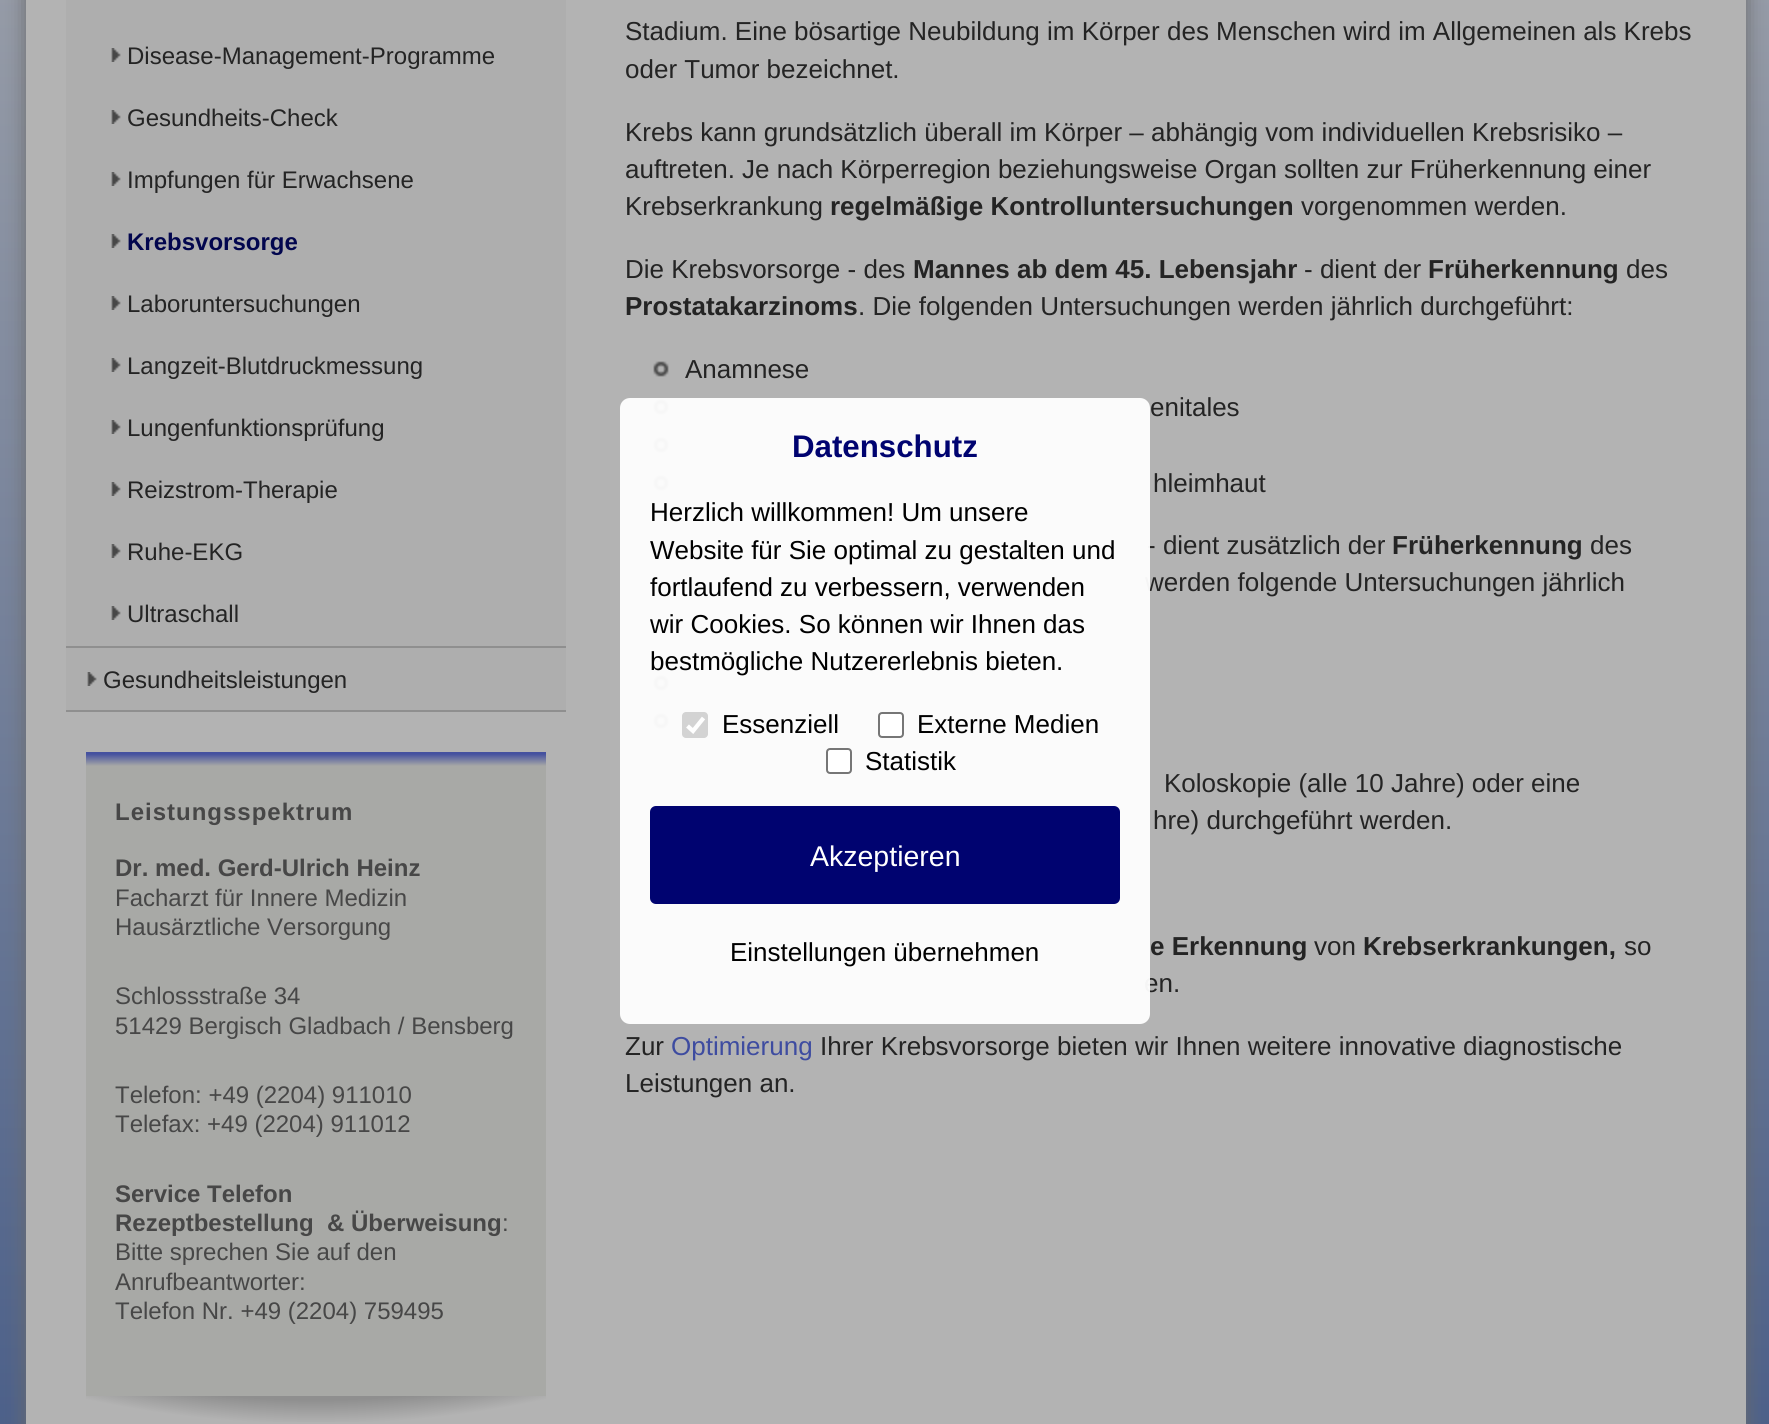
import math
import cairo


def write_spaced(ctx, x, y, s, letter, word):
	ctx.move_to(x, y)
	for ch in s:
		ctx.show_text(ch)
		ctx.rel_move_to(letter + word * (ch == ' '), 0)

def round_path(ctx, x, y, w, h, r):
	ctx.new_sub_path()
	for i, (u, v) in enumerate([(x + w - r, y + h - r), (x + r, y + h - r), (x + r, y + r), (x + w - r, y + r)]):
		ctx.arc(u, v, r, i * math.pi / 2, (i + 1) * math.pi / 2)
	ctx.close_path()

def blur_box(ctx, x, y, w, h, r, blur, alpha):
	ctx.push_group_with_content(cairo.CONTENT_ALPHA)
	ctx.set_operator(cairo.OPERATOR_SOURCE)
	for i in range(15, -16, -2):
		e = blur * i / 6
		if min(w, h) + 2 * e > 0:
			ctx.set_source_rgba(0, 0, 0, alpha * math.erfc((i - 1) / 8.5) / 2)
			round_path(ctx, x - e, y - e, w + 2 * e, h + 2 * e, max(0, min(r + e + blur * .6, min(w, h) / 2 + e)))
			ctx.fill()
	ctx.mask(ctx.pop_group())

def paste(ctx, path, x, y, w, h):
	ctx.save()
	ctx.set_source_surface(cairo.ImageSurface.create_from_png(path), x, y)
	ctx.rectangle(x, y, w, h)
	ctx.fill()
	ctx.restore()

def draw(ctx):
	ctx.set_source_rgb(1, 1, 1)
	ctx.paint()
	gradient = cairo.LinearGradient(885, -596, 885, 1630)
	gradient.add_color_stop_rgba(0, 0.702, 0.702, 0.702, 1)
	gradient.add_color_stop_rgba(1, 0.259, 0.345, 0.522, 1)
	ctx.set_source(gradient)
	ctx.rectangle(0, 0, 1769, 1424)
	ctx.fill()
	ctx.set_source_rgb(0.42, 0.42, 0.42)
	blur_box(ctx, 26, -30, 1720, 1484, 0, 10, 1)
	ctx.set_source_rgb(0.702, 0.702, 0.702)
	ctx.rectangle(26, 0, 1720, 1424)
	ctx.fill()
	ctx.set_source_rgb(0.682, 0.682, 0.682)
	ctx.rectangle(66, 0, 500, 710)
	ctx.fill()
	ctx.set_source_rgb(0.561, 0.561, 0.561)
	ctx.rectangle(66, 646, 500, 2)
	ctx.fill()
	paste(ctx, 'media/1.png', 111, 48, 10, 14)
	ctx.select_font_face('Liberation Sans')
	ctx.set_font_size(24)
	ctx.set_source_rgb(0.141, 0.141, 0.141)
	ctx.move_to(127, 64)
	ctx.show_text('Disease-Management-Programme')
	paste(ctx, 'media/1.png', 111, 110, 10, 14)
	ctx.move_to(127, 126)
	ctx.show_text('Gesundheits-Check')
	paste(ctx, 'media/1.png', 111, 172, 10, 14)
	ctx.move_to(127, 188)
	ctx.show_text('Impfungen für Erwachsene')
	paste(ctx, 'media/1.png', 111, 234, 10, 14)
	ctx.select_font_face('Liberation Sans', cairo.FONT_SLANT_NORMAL, cairo.FONT_WEIGHT_BOLD)
	ctx.set_source_rgb(0.008, 0.027, 0.306)
	ctx.move_to(127, 250)
	ctx.show_text('Krebsvorsorge')
	paste(ctx, 'media/1.png', 111, 296, 10, 14)
	ctx.select_font_face('Liberation Sans')
	ctx.set_source_rgb(0.141, 0.141, 0.141)
	ctx.move_to(127, 312)
	ctx.show_text('Laboruntersuchungen')
	paste(ctx, 'media/1.png', 111, 358, 10, 14)
	ctx.move_to(127, 374)
	ctx.show_text('Langzeit-Blutdruckmessung')
	paste(ctx, 'media/1.png', 111, 420, 10, 14)
	ctx.move_to(127, 436)
	ctx.show_text('Lungenfunktionsprüfung')
	paste(ctx, 'media/1.png', 111, 482, 10, 14)
	ctx.move_to(127, 498)
	ctx.show_text('Reizstrom-Therapie')
	paste(ctx, 'media/1.png', 111, 544, 10, 14)
	ctx.move_to(127, 560)
	ctx.show_text('Ruhe-EKG')
	paste(ctx, 'media/1.png', 111, 606, 10, 14)
	ctx.move_to(127, 622)
	ctx.show_text('Ultraschall')
	ctx.set_source_rgb(0.561, 0.561, 0.561)
	ctx.rectangle(66, 710, 500, 2)
	ctx.fill()
	paste(ctx, 'media/1.png', 87, 672, 10, 14)
	ctx.set_source_rgb(0.141, 0.141, 0.141)
	ctx.move_to(103, 688)
	ctx.show_text('Gesundheitsleistungen')
	gradient = cairo.LinearGradient(316, 754, 316, 766)
	gradient.add_color_stop_rgba(0, 0.271, 0.318, 0.624, 1)
	gradient.add_color_stop_rgba(1, 0.659, 0.663, 0.651, 1)
	ctx.set_source(gradient)
	ctx.rectangle(86, 754, 460, 12)
	ctx.fill()
	ctx.set_source_rgb(0.271, 0.318, 0.624)
	ctx.rectangle(86, 752, 460, 2)
	ctx.fill()
	ctx.set_source_rgb(0.659, 0.663, 0.651)
	ctx.rectangle(86, 766, 460, 630)
	ctx.fill()
	ctx.select_font_face('Liberation Sans', cairo.FONT_SLANT_NORMAL, cairo.FONT_WEIGHT_BOLD)
	ctx.set_source_rgb(0.278, 0.278, 0.278)
	write_spaced(ctx, 115, 820, 'Leistungsspektrum', 1, 0)
	ctx.move_to(115, 876)
	ctx.show_text('Dr. med. Gerd-Ulrich Heinz')
	ctx.select_font_face('Liberation Sans')
	for x, y, s in [
		(115, 906, 'Facharzt für Innere Medizin'),
		(115, 935, 'Hausärztliche Versorgung'),
		(115, 1004, 'Schlossstraße 34'),
		(115, 1034, '51429 Bergisch Gladbach / Bensberg'),
		(115, 1103, 'Telefon: +49 (2204) 911010'),
		(115, 1132, 'Telefax: +49 (2204) 911012'),
	]:
		ctx.move_to(x, y)
		ctx.show_text(s)
	ctx.select_font_face('Liberation Sans', cairo.FONT_SLANT_NORMAL, cairo.FONT_WEIGHT_BOLD)
	for x, y, s in [
		(115, 1202, 'Service Telefon'),
		(115, 1231, 'Rezeptbestellung'),
		(327, 1231, '& Überweisung'),
	]:
		ctx.move_to(x, y)
		ctx.show_text(s)
	ctx.select_font_face('Liberation Sans')
	for x, y, s in [
		(502, 1231, ':'),
		(115, 1260, 'Bitte sprechen Sie auf den'),
		(115, 1290, 'Anrufbeantworter:'),
		(115, 1319, 'Telefon Nr. +49 (2204) 759495'),
	]:
		ctx.move_to(x, y)
		ctx.show_text(s)
	gradient = cairo.RadialGradient(316, 332, 0, 316, 332, 1200)
	gradient.add_color_stop_rgba(0.89, 0.561, 0.561, 0.561, 1)
	gradient.add_color_stop_rgba(0.91, 0.702, 0.702, 0.702, 1)
	ctx.set_source(gradient)
	ctx.rectangle(86, 1396, 460, 26)
	ctx.fill()
	ctx.set_font_size(26)
	ctx.set_source_rgb(0.141, 0.141, 0.141)
	for x, y, s in [
		(625, 40, 'Stadium. Eine bösartige Neubildung im Körper des Menschen wird im Allgemeinen als Krebs'),
		(625, 78, 'oder Tumor bezeichnet.'),
		(625, 141, 'Krebs kann grundsätzlich überall im Körper – abhängig vom individuellen Krebsrisiko –'),
		(625, 178, 'auftreten. Je nach Körperregion beziehungsweise Organ sollten zur Früherkennung einer'),
		(625, 215, 'Krebserkrankung'),
	]:
		ctx.move_to(x, y)
		ctx.show_text(s)
	ctx.select_font_face('Liberation Sans', cairo.FONT_SLANT_NORMAL, cairo.FONT_WEIGHT_BOLD)
	ctx.move_to(830, 215)
	ctx.show_text('regelmäßige Kontrolluntersuchungen')
	ctx.select_font_face('Liberation Sans')
	ctx.move_to(1301, 215)
	ctx.show_text('vorgenommen werden.')
	ctx.move_to(625, 278)
	ctx.show_text('Die Krebsvorsorge - des')
	ctx.select_font_face('Liberation Sans', cairo.FONT_SLANT_NORMAL, cairo.FONT_WEIGHT_BOLD)
	ctx.move_to(913, 278)
	ctx.show_text('Mannes ab dem 45. Lebensjahr')
	ctx.select_font_face('Liberation Sans')
	ctx.move_to(1304, 278)
	ctx.show_text('- dient der')
	ctx.select_font_face('Liberation Sans', cairo.FONT_SLANT_NORMAL, cairo.FONT_WEIGHT_BOLD)
	ctx.move_to(1428, 278)
	ctx.show_text('Früherkennung')
	ctx.select_font_face('Liberation Sans')
	ctx.move_to(1626, 278)
	ctx.show_text('des')
	ctx.select_font_face('Liberation Sans', cairo.FONT_SLANT_NORMAL, cairo.FONT_WEIGHT_BOLD)
	ctx.move_to(625, 315)
	ctx.show_text('Prostatakarzinoms')
	ctx.select_font_face('Liberation Sans')
	ctx.move_to(858, 315)
	ctx.show_text('. Die folgenden Untersuchungen werden jährlich durchgeführt:')
	paste(ctx, 'media/2.png', 653, 361, 16, 16)
	ctx.move_to(685, 378)
	ctx.show_text('Anamnese')
	paste(ctx, 'media/2.png', 653, 399, 16, 16)
	ctx.move_to(1150, 416)
	ctx.show_text('enitales')
	paste(ctx, 'media/2.png', 653, 437, 16, 16)
	paste(ctx, 'media/2.png', 653, 475, 16, 16)
	ctx.move_to(1153, 492)
	ctx.show_text('hleimhaut')
	ctx.move_to(1147, 554)
	ctx.show_text('- dient zusätzlich der')
	ctx.select_font_face('Liberation Sans', cairo.FONT_SLANT_NORMAL, cairo.FONT_WEIGHT_BOLD)
	ctx.move_to(1392, 554)
	ctx.show_text('Früherkennung')
	ctx.select_font_face('Liberation Sans')
	ctx.move_to(1590, 554)
	ctx.show_text('des')
	ctx.move_to(1145, 591)
	ctx.show_text('werden folgende Untersuchungen jährlich')
	paste(ctx, 'media/2.png', 653, 675, 16, 16)
	paste(ctx, 'media/2.png', 653, 713, 16, 16)
	ctx.move_to(1164, 792)
	ctx.show_text('Koloskopie (alle 10 Jahre) oder eine')
	ctx.move_to(1153, 829)
	ctx.show_text('hre) durchgeführt werden.')
	ctx.select_font_face('Liberation Sans', cairo.FONT_SLANT_NORMAL, cairo.FONT_WEIGHT_BOLD)
	ctx.move_to(1150, 955)
	ctx.show_text('e Erkennung')
	ctx.select_font_face('Liberation Sans')
	ctx.move_to(1314, 955)
	ctx.show_text('von')
	ctx.select_font_face('Liberation Sans', cairo.FONT_SLANT_NORMAL, cairo.FONT_WEIGHT_BOLD)
	ctx.move_to(1363, 955)
	ctx.show_text('Krebserkrankungen,')
	ctx.select_font_face('Liberation Sans')
	for x, y, s in [
		(1624, 955, 'so'),
		(1144, 992, 'en.'),
		(625, 1055, 'Zur'),
	]:
		ctx.move_to(x, y)
		ctx.show_text(s)
	ctx.set_source_rgb(0.243, 0.298, 0.627)
	ctx.move_to(671, 1055)
	ctx.show_text('Optimierung')
	ctx.set_source_rgb(0.141, 0.141, 0.141)
	ctx.move_to(820, 1055)
	ctx.show_text('Ihrer Krebsvorsorge bieten wir Ihnen weitere innovative diagnostische')
	ctx.move_to(625, 1092)
	ctx.show_text('Leistungen an.')
	ctx.set_source_rgba(1, 1, 1, 0.95)
	round_path(ctx, 620, 398, 530, 626, 10)
	ctx.fill()
	ctx.select_font_face('Liberation Sans', cairo.FONT_SLANT_NORMAL, cairo.FONT_WEIGHT_BOLD)
	ctx.set_font_size(31.25)
	ctx.set_source_rgb(0, 0.012, 0.439)
	ctx.move_to(792, 457)
	ctx.show_text('Datenschutz')
	ctx.select_font_face('Liberation Sans')
	ctx.set_font_size(26)
	ctx.set_source_rgb(0, 0, 0)
	for x, y, s in [
		(650, 521, 'Herzlich willkommen! Um unsere'),
		(650, 559, 'Website für Sie optimal zu gestalten und'),
		(650, 596, 'fortlaufend zu verbessern, verwenden'),
		(650, 633, 'wir Cookies. So können wir Ihnen das'),
		(650, 670, 'bestmögliche Nutzererlebnis bieten.'),
	]:
		ctx.move_to(x, y)
		ctx.show_text(s)
	ctx.set_source_rgba(0.463, 0.463, 0.463, 0.3)
	round_path(ctx, 682, 712, 26, 26, 4)
	ctx.fill()
	ctx.new_path()
	ctx.move_to(687.5, 726)
	ctx.line_to(693, 731)
	ctx.line_to(703.5, 718)
	ctx.set_source_rgb(1, 1, 1)
	ctx.set_line_width(4.2)
	ctx.stroke()
	ctx.set_source_rgb(0, 0, 0)
	ctx.move_to(722, 733)
	ctx.show_text('Essenziell')
	ctx.set_source_rgb(1, 1, 1)
	round_path(ctx, 879, 713, 24, 24, 3)
	ctx.fill_preserve()
	ctx.set_source_rgb(0.463, 0.463, 0.463)
	ctx.set_line_width(2)
	ctx.stroke()
	ctx.set_source_rgb(0, 0, 0)
	ctx.move_to(917, 733)
	ctx.show_text('Externe Medien')
	ctx.set_source_rgb(1, 1, 1)
	round_path(ctx, 827, 749, 24, 24, 3)
	ctx.fill_preserve()
	ctx.set_source_rgb(0.463, 0.463, 0.463)
	ctx.stroke()
	ctx.set_source_rgb(0, 0, 0)
	ctx.move_to(865, 770)
	ctx.show_text('Statistik')
	ctx.set_source_rgb(0, 0.012, 0.439)
	round_path(ctx, 650, 806, 470, 98, 6)
	ctx.fill()
	ctx.set_font_size(28.5)
	ctx.set_source_rgb(1, 1, 1)
	ctx.move_to(810, 866)
	ctx.show_text('Akzeptieren')
	ctx.set_font_size(26)
	ctx.set_source_rgb(0, 0, 0)
	ctx.move_to(730, 961)
	ctx.show_text('Einstellungen übernehmen')


surface = cairo.ImageSurface(cairo.FORMAT_RGB24, 1769, 1424)
ctx = cairo.Context(surface)
options = cairo.FontOptions()
options.set_hint_metrics(cairo.HINT_METRICS_OFF)
options.set_hint_style(cairo.HINT_STYLE_NONE)
ctx.set_font_options(options)
ctx.set_miter_limit(4)
draw(ctx)
surface.write_to_png('image.png')
